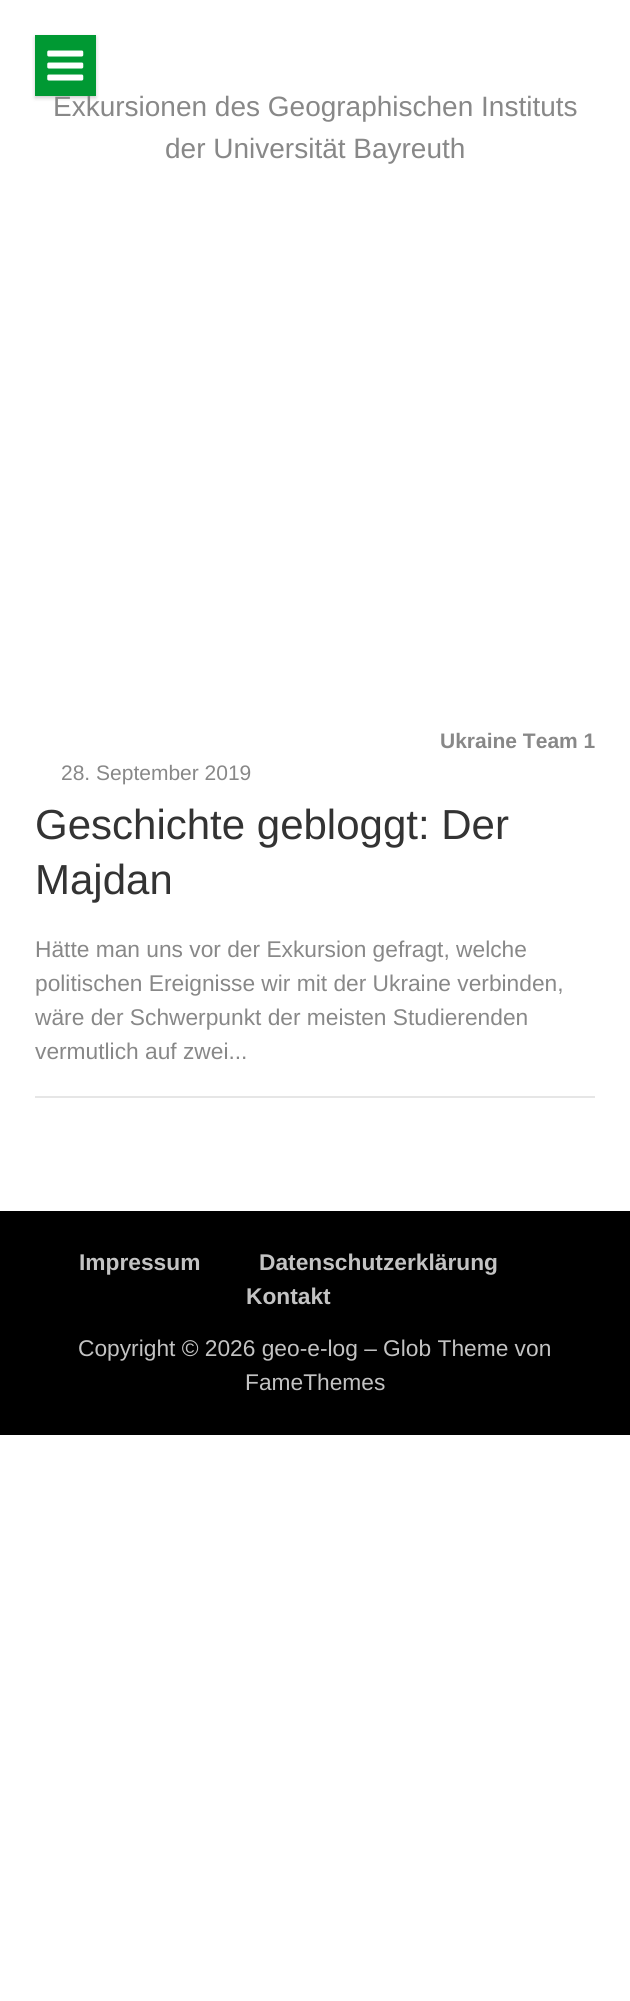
import math
import cairo


def round_path(ctx, x, y, w, h, r):
	ctx.new_sub_path()
	for i, (u, v) in enumerate([(x + w - r, y + h - r), (x + r, y + h - r), (x + r, y + r), (x + w - r, y + r)]):
		ctx.arc(u, v, r, i * math.pi / 2, (i + 1) * math.pi / 2)
	ctx.close_path()

def blur_box(ctx, x, y, w, h, r, blur, alpha):
	ctx.push_group_with_content(cairo.CONTENT_ALPHA)
	ctx.set_operator(cairo.OPERATOR_SOURCE)
	for i in range(15, -16, -2):
		e = blur * i / 6
		if min(w, h) + 2 * e > 0:
			ctx.set_source_rgba(0, 0, 0, alpha * math.erfc((i - 1) / 8.5) / 2)
			round_path(ctx, x - e, y - e, w + 2 * e, h + 2 * e, max(0, min(r + e + blur * .6, min(w, h) / 2 + e)))
			ctx.fill()
	ctx.mask(ctx.pop_group())

def paste(ctx, path, x, y, w, h):
	ctx.save()
	ctx.set_source_surface(cairo.ImageSurface.create_from_png(path), x, y)
	ctx.rectangle(x, y, w, h)
	ctx.fill()
	ctx.restore()

def draw(ctx):
	ctx.set_source_rgb(1, 1, 1)
	ctx.paint()
	ctx.set_source_rgb(0, 0, 0)
	blur_box(ctx, 35, 37, 61, 61, 0, 2, 0.2)
	ctx.select_font_face('Liberation Sans')
	ctx.set_font_size(28)
	ctx.set_source_rgb(0.533, 0.533, 0.533)
	ctx.move_to(53, 116)
	ctx.show_text('Exkursionen des Geographischen Instituts')
	ctx.set_source_rgb(0, 0.6, 0.2)
	ctx.rectangle(35, 35, 61, 61)
	ctx.fill()
	paste(ctx, 'media/1.png', 47, 50, 37, 31)
	ctx.set_source_rgb(0.533, 0.533, 0.533)
	ctx.move_to(165, 158)
	ctx.show_text('der Universität Bayreuth')
	ctx.set_source_rgb(0.902, 0.902, 0.902)
	ctx.rectangle(35, 1096, 560, 2)
	ctx.fill()
	ctx.select_font_face('Liberation Sans', cairo.FONT_SLANT_NORMAL, cairo.FONT_WEIGHT_BOLD)
	ctx.set_font_size(21)
	ctx.set_source_rgb(0.533, 0.533, 0.533)
	ctx.move_to(440, 748)
	ctx.show_text('Ukraine Team 1')
	ctx.select_font_face('Liberation Sans')
	ctx.move_to(61, 780)
	ctx.show_text('28. September 2019')
	ctx.set_font_size(42)
	ctx.set_source_rgb(0.2, 0.2, 0.2)
	ctx.move_to(35, 839)
	ctx.show_text('Geschichte gebloggt: Der')
	ctx.move_to(35, 894)
	ctx.show_text('Majdan')
	ctx.set_font_size(22.75)
	ctx.set_source_rgb(0.533, 0.533, 0.533)
	for x, y, s in [
		(35, 957, 'Hätte man uns vor der Exkursion gefragt, welche'),
		(35, 991, 'politischen Ereignisse wir mit der Ukraine verbinden,'),
		(35, 1025, 'wäre der Schwerpunkt der meisten Studierenden'),
		(35, 1059, 'vermutlich auf zwei...'),
	]:
		ctx.move_to(x, y)
		ctx.show_text(s)
	ctx.set_source_rgb(0, 0, 0)
	ctx.rectangle(0, 1211, 630, 224)
	ctx.fill()
	ctx.select_font_face('Liberation Sans', cairo.FONT_SLANT_NORMAL, cairo.FONT_WEIGHT_BOLD)
	ctx.set_source_rgb(0.765, 0.765, 0.765)
	for x, y, s in [
		(79, 1270, 'Impressum'),
		(259, 1270, 'Datenschutzerklärung'),
		(246, 1304, 'Kontakt'),
	]:
		ctx.move_to(x, y)
		ctx.show_text(s)
	ctx.select_font_face('Liberation Sans')
	ctx.move_to(78, 1356)
	ctx.show_text('Copyright © 2026 geo-e-log – Glob Theme von')
	ctx.move_to(245, 1390)
	ctx.show_text('FameThemes')


surface = cairo.ImageSurface(cairo.FORMAT_RGB24, 630, 2001)
ctx = cairo.Context(surface)
options = cairo.FontOptions()
options.set_hint_metrics(cairo.HINT_METRICS_OFF)
options.set_hint_style(cairo.HINT_STYLE_NONE)
ctx.set_font_options(options)
ctx.set_miter_limit(4)
draw(ctx)
surface.write_to_png('image.png')
